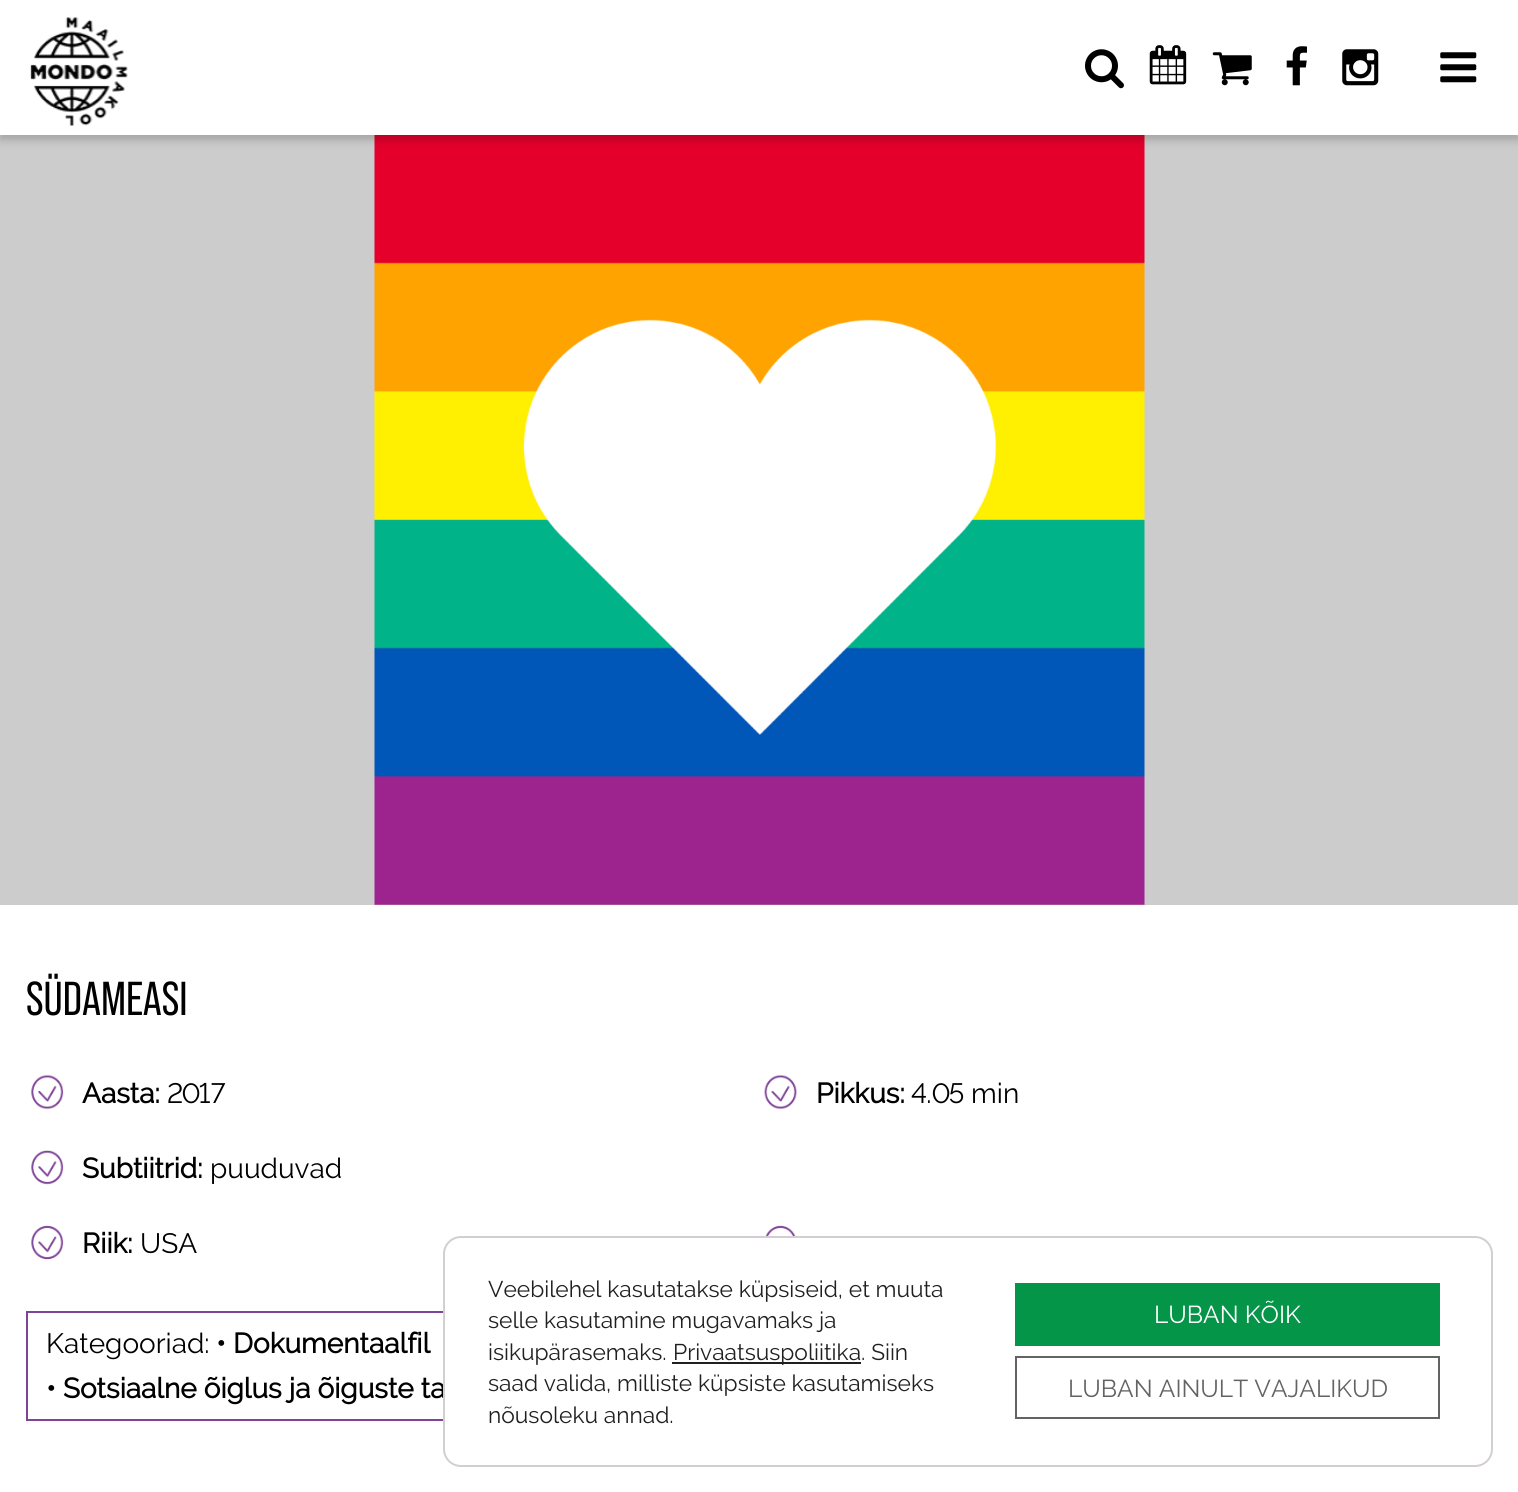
import math
import cairo


def round_path(ctx, x, y, w, h, r):
	ctx.new_sub_path()
	for i, (u, v) in enumerate([(x + w - r, y + h - r), (x + r, y + h - r), (x + r, y + r), (x + w - r, y + r)]):
		ctx.arc(u, v, r, i * math.pi / 2, (i + 1) * math.pi / 2)
	ctx.close_path()

def blur_box(ctx, x, y, w, h, r, blur, alpha):
	ctx.push_group_with_content(cairo.CONTENT_ALPHA)
	ctx.set_operator(cairo.OPERATOR_SOURCE)
	for i in range(15, -16, -2):
		e = blur * i / 6
		if min(w, h) + 2 * e > 0:
			ctx.set_source_rgba(0, 0, 0, alpha * math.erfc((i - 1) / 8.5) / 2)
			round_path(ctx, x - e, y - e, w + 2 * e, h + 2 * e, max(0, min(r + e + blur * .6, min(w, h) / 2 + e)))
			ctx.fill()
	ctx.mask(ctx.pop_group())

def paste(ctx, path, x, y, w, h):
	ctx.save()
	ctx.set_source_surface(cairo.ImageSurface.create_from_png(path), x, y)
	ctx.rectangle(x, y, w, h)
	ctx.fill()
	ctx.restore()

def draw(ctx):
	ctx.set_source_rgb(0.8, 0.8, 0.8)
	ctx.paint()
	paste(ctx, 'media/8.png', 374, 135, 771, 770)
	ctx.set_source_rgb(0, 0, 0)
	blur_box(ctx, 0, 5, 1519, 135, 0, 4.5, 0.2)
	ctx.set_source_rgb(1, 1, 1)
	ctx.rectangle(0, 0, 1518, 135)
	ctx.fill()
	paste(ctx, 'media/1.png', 30, 17, 98, 109)
	paste(ctx, 'media/2.png', 1085, 49, 39, 40)
	paste(ctx, 'media/3.png', 1149, 45, 38, 40)
	paste(ctx, 'media/4.png', 1212, 52, 40, 34)
	paste(ctx, 'media/5.png', 1286, 46, 21, 40)
	paste(ctx, 'media/6.png', 1342, 49, 37, 37)
	paste(ctx, 'media/7.png', 1440, 52, 37, 31)
	ctx.rectangle(0, 905, 1518, 587)
	ctx.fill()
	ctx.select_font_face('Bebas Neue')
	ctx.set_font_size(47.5)
	ctx.set_source_rgb(0, 0, 0)
	ctx.move_to(26, 1015)
	ctx.show_text('SÜDAMEASI')
	paste(ctx, 'media/9.png', 31, 1074, 33, 36)
	ctx.select_font_face('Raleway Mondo', cairo.FONT_SLANT_NORMAL, cairo.FONT_WEIGHT_BOLD)
	ctx.set_font_size(28)
	ctx.move_to(82, 1103)
	ctx.show_text('Aasta:')
	ctx.select_font_face('Raleway Mondo')
	ctx.move_to(167, 1103)
	ctx.show_text('2017')
	paste(ctx, 'media/10.png', 764, 1074, 33, 36)
	ctx.select_font_face('Raleway Mondo', cairo.FONT_SLANT_NORMAL, cairo.FONT_WEIGHT_BOLD)
	ctx.move_to(816, 1103)
	ctx.show_text('Pikkus:')
	ctx.select_font_face('Raleway Mondo')
	ctx.move_to(911, 1103)
	ctx.show_text('4.05 min')
	paste(ctx, 'media/11.png', 31, 1150, 33, 35)
	ctx.select_font_face('Raleway Mondo', cairo.FONT_SLANT_NORMAL, cairo.FONT_WEIGHT_BOLD)
	ctx.move_to(82, 1178)
	ctx.show_text('Subtiitrid:')
	ctx.select_font_face('Raleway Mondo')
	ctx.move_to(210, 1178)
	ctx.show_text('puuduvad')
	paste(ctx, 'media/12.png', 765, 1225, 31, 11)
	paste(ctx, 'media/13.png', 31, 1225, 33, 35)
	ctx.select_font_face('Raleway Mondo', cairo.FONT_SLANT_NORMAL, cairo.FONT_WEIGHT_BOLD)
	ctx.move_to(82, 1253)
	ctx.show_text('Riik:')
	ctx.select_font_face('Raleway Mondo')
	ctx.move_to(140, 1253)
	ctx.show_text('USA')
	ctx.rectangle(27, 1312, 1465, 108)
	ctx.set_source_rgb(0.498, 0.263, 0.6)
	ctx.stroke()
	ctx.set_source_rgb(0, 0, 0)
	ctx.move_to(46, 1353)
	ctx.show_text('Kategooriad:')
	ctx.select_font_face('Raleway Mondo', cairo.FONT_SLANT_NORMAL, cairo.FONT_WEIGHT_BOLD)
	ctx.move_to(216, 1353)
	ctx.show_text('• Dokumentaalfil')
	ctx.move_to(46, 1398)
	ctx.show_text('• Sotsiaalne õiglus ja õiguste ta')
	ctx.set_source_rgb(1, 1, 1)
	round_path(ctx, 444, 1237, 1048, 229, 17)
	ctx.fill_preserve()
	ctx.set_source_rgb(0.827, 0.808, 0.824)
	ctx.stroke()
	ctx.select_font_face('Raleway Mondo')
	ctx.set_font_size(22.75)
	ctx.set_source_rgb(0.125, 0.125, 0.125)
	for x, y, s in [
		(488, 1297, 'Veebilehel kasutatakse küpsiseid, et muuta'),
		(488, 1328, 'selle kasutamine mugavamaks ja'),
		(488, 1360, 'isikupärasemaks.'),
	]:
		ctx.move_to(x, y)
		ctx.show_text(s)
	ctx.rectangle(672, 1362, 189, 2)
	ctx.fill()
	for x, y, s in [
		(673, 1360, 'Privaatsuspoliitika. Siin'),
		(488, 1391, 'saad valida, milliste küpsiste kasutamiseks'),
		(488, 1423, 'nõusoleku annad.'),
	]:
		ctx.move_to(x, y)
		ctx.show_text(s)
	ctx.set_source_rgb(0.016, 0.584, 0.282)
	ctx.rectangle(1015, 1283, 425, 63)
	ctx.fill()
	ctx.set_font_size(24.5)
	ctx.set_source_rgb(1, 1, 1)
	ctx.move_to(1154, 1323)
	ctx.show_text('LUBAN KÕIK')
	ctx.rectangle(1016, 1357, 423, 61)
	ctx.set_source_rgb(0.388, 0.388, 0.388)
	ctx.stroke()
	ctx.move_to(1068, 1397)
	ctx.show_text('LUBAN AINULT VAJALIKUD')


surface = cairo.ImageSurface(cairo.FORMAT_RGB24, 1518, 1492)
ctx = cairo.Context(surface)
options = cairo.FontOptions()
options.set_hint_metrics(cairo.HINT_METRICS_OFF)
options.set_hint_style(cairo.HINT_STYLE_NONE)
ctx.set_font_options(options)
ctx.set_miter_limit(4)
draw(ctx)
surface.write_to_png('image.png')
